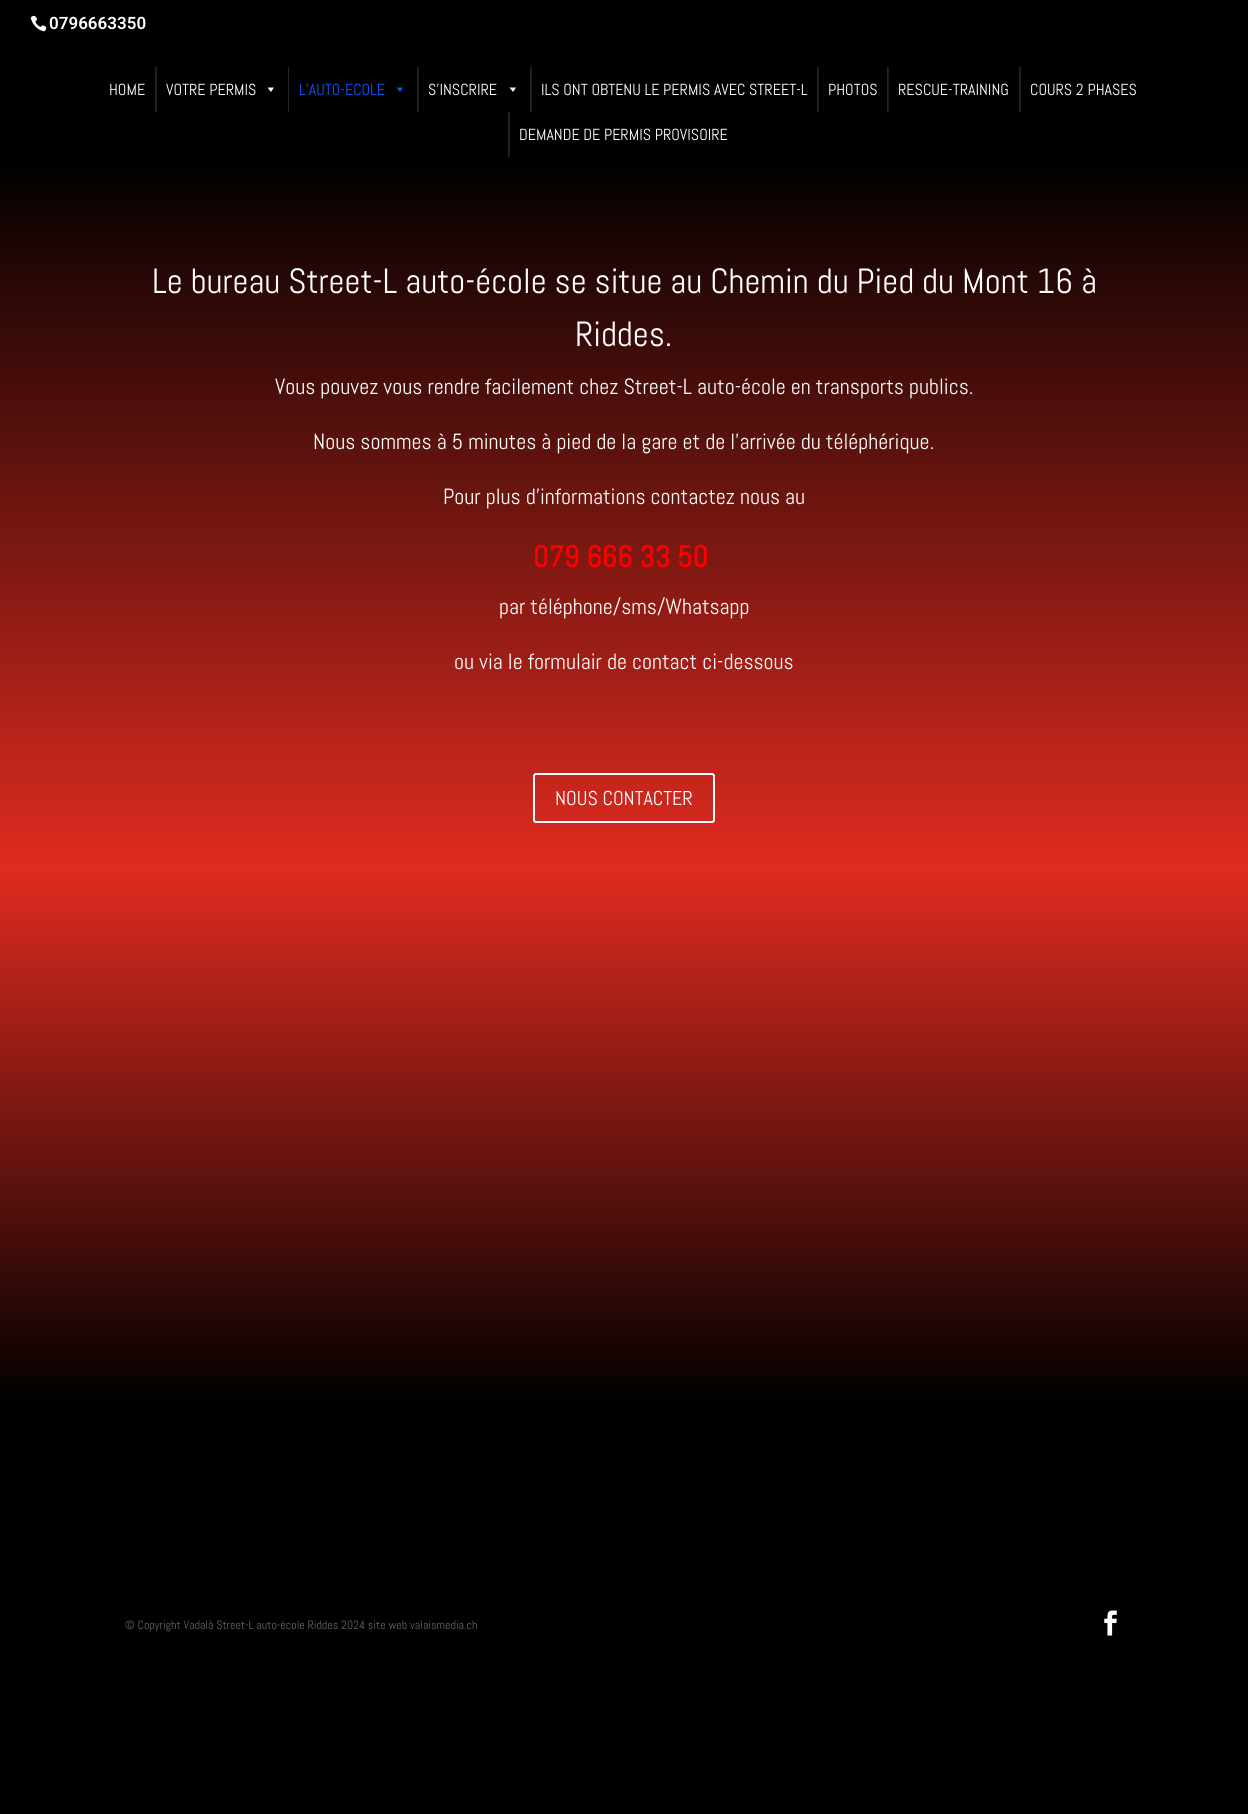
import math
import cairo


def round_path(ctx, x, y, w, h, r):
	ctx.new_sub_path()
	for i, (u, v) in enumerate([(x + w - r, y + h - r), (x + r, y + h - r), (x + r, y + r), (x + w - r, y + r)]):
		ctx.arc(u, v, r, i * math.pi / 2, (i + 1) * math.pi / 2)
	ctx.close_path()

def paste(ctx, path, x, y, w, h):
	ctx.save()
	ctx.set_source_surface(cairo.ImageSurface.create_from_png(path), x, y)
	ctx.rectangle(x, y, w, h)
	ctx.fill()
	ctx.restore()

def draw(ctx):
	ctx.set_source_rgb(0, 0, 0)
	ctx.paint()
	paste(ctx, 'media/1.png', 30, 15, 17, 17)
	ctx.select_font_face('Roboto SemiBold')
	ctx.set_font_size(17)
	ctx.set_source_rgb(1, 1, 1)
	ctx.move_to(49, 29)
	ctx.show_text('0796663350')
	ctx.select_font_face('Abel')
	ctx.set_font_size(16)
	ctx.move_to(109, 95)
	ctx.show_text('HOME')
	ctx.set_source_rgb(0.102, 0.102, 0.102)
	ctx.rectangle(156, 67, 1, 45)
	ctx.fill()
	ctx.set_source_rgb(0.149, 0.149, 0.149)
	ctx.rectangle(155, 67, 1, 45)
	ctx.fill()
	ctx.set_source_rgb(1, 1, 1)
	ctx.move_to(166, 95)
	ctx.show_text('VOTRE PERMIS')
	ctx.new_path()
	ctx.move_to(274, 87.5)
	ctx.line_to(271, 92)
	ctx.line_to(267.5, 87.5)
	ctx.close_path()
	ctx.fill()
	ctx.set_source_rgb(0.149, 0.149, 0.149)
	ctx.rectangle(288, 67, 1, 45)
	ctx.fill()
	ctx.set_source_rgb(0.055, 0.333, 0.988)
	ctx.move_to(299, 95)
	ctx.show_text('L’AUTO-ECOLE')
	ctx.new_path()
	ctx.move_to(403, 87.5)
	ctx.line_to(400, 92)
	ctx.line_to(396.5, 87.5)
	ctx.close_path()
	ctx.fill()
	ctx.set_source_rgb(0.102, 0.102, 0.102)
	ctx.rectangle(418, 67, 1, 45)
	ctx.fill()
	ctx.set_source_rgb(0.149, 0.149, 0.149)
	ctx.rectangle(417, 67, 1, 45)
	ctx.fill()
	ctx.set_source_rgb(1, 1, 1)
	ctx.move_to(428, 95)
	ctx.show_text('S’INSCRIRE')
	ctx.new_path()
	ctx.move_to(516, 87.5)
	ctx.line_to(513, 92)
	ctx.line_to(509.5, 87.5)
	ctx.close_path()
	ctx.fill()
	ctx.set_source_rgb(0.102, 0.102, 0.102)
	ctx.rectangle(531, 67, 1, 45)
	ctx.fill()
	ctx.set_source_rgb(0.149, 0.149, 0.149)
	ctx.rectangle(530, 67, 1, 45)
	ctx.fill()
	ctx.set_source_rgb(1, 1, 1)
	ctx.move_to(541, 95)
	ctx.show_text('ILS ONT OBTENU LE PERMIS AVEC STREET-L')
	ctx.set_source_rgb(0.102, 0.102, 0.102)
	ctx.rectangle(818, 67, 1, 45)
	ctx.fill()
	ctx.set_source_rgb(0.149, 0.149, 0.149)
	ctx.rectangle(817, 67, 1, 45)
	ctx.fill()
	ctx.set_source_rgb(1, 1, 1)
	ctx.move_to(828, 95)
	ctx.show_text('PHOTOS')
	ctx.set_source_rgb(0.102, 0.102, 0.102)
	ctx.rectangle(888, 67, 1, 45)
	ctx.fill()
	ctx.set_source_rgb(0.149, 0.149, 0.149)
	ctx.rectangle(887, 67, 1, 45)
	ctx.fill()
	ctx.set_source_rgb(1, 1, 1)
	ctx.move_to(898, 95)
	ctx.show_text('RESCUE-TRAINING')
	ctx.set_source_rgb(0.102, 0.102, 0.102)
	ctx.rectangle(1020, 67, 1, 45)
	ctx.fill()
	ctx.set_source_rgb(0.149, 0.149, 0.149)
	ctx.rectangle(1019, 67, 1, 45)
	ctx.fill()
	ctx.set_source_rgb(1, 1, 1)
	ctx.move_to(1030, 95)
	ctx.show_text('COURS 2 PHASES')
	ctx.set_source_rgb(0.102, 0.102, 0.102)
	ctx.rectangle(509, 112, 1, 45)
	ctx.fill()
	ctx.set_source_rgb(0.149, 0.149, 0.149)
	ctx.rectangle(508, 112, 1, 45)
	ctx.fill()
	ctx.set_source_rgb(1, 1, 1)
	ctx.move_to(519, 140)
	ctx.show_text('DEMANDE DE PERMIS PROVISOIRE')
	gradient = cairo.LinearGradient(624, 157, 624, 868)
	gradient.add_color_stop_rgba(0, 0, 0, 0, 1)
	gradient.add_color_stop_rgba(1, 0.878, 0.169, 0.125, 1)
	ctx.set_source(gradient)
	ctx.rectangle(0, 165, 1248, 703)
	ctx.fill()
	ctx.set_font_size(35)
	ctx.set_source_rgb(1, 1, 1)
	ctx.move_to(152, 293)
	ctx.show_text('Le bureau Street-L auto-école se situe au Chemin du Pied du Mont 16 à')
	ctx.move_to(575, 346)
	ctx.show_text('Riddes.')
	ctx.set_font_size(22)
	for x, y, s in [
		(275, 394, 'Vous pouvez vous rendre facilement chez Street-L auto-école en transports publics.'),
		(313, 449, 'Nous sommes à 5 minutes à pied de la gare et de l’arrivée du téléphérique.'),
		(443, 504, 'Pour plus d’informations contactez nous au'),
	]:
		ctx.move_to(x, y)
		ctx.show_text(s)
	ctx.select_font_face('Abel', cairo.FONT_SLANT_NORMAL, cairo.FONT_WEIGHT_BOLD)
	ctx.set_font_size(30)
	ctx.set_source_rgb(1, 0, 0)
	ctx.move_to(533, 567)
	ctx.show_text('079 666 33 50')
	ctx.select_font_face('Abel')
	ctx.set_font_size(22)
	ctx.set_source_rgb(1, 1, 1)
	ctx.move_to(499, 614)
	ctx.show_text('par téléphone/sms/Whatsapp')
	ctx.move_to(454, 669)
	ctx.show_text('ou via le formulair de contact ci-dessous')
	round_path(ctx, 534, 774, 180, 48, 2)
	ctx.stroke()
	ctx.set_font_size(20)
	ctx.move_to(555, 805)
	ctx.show_text('NOUS CONTACTER')
	gradient = cairo.LinearGradient(624, 868, 624, 1404)
	gradient.add_color_stop_rgba(0, 0.878, 0.169, 0.125, 1)
	gradient.add_color_stop_rgba(1, 0, 0, 0, 1)
	ctx.set_source(gradient)
	ctx.rectangle(0, 868, 1248, 530)
	ctx.fill()
	ctx.set_font_size(12)
	ctx.set_source_rgb(0.4, 0.4, 0.4)
	ctx.move_to(125, 1629)
	ctx.show_text('© Copyright Vadalà Street-L auto-école Riddes 2024 site web valaismedia.ch')
	paste(ctx, 'media/2.png', 1104, 1610, 13, 26)


surface = cairo.ImageSurface(cairo.FORMAT_RGB24, 1248, 1814)
ctx = cairo.Context(surface)
options = cairo.FontOptions()
options.set_hint_metrics(cairo.HINT_METRICS_OFF)
options.set_hint_style(cairo.HINT_STYLE_NONE)
ctx.set_font_options(options)
ctx.set_miter_limit(4)
draw(ctx)
surface.write_to_png('image.png')
